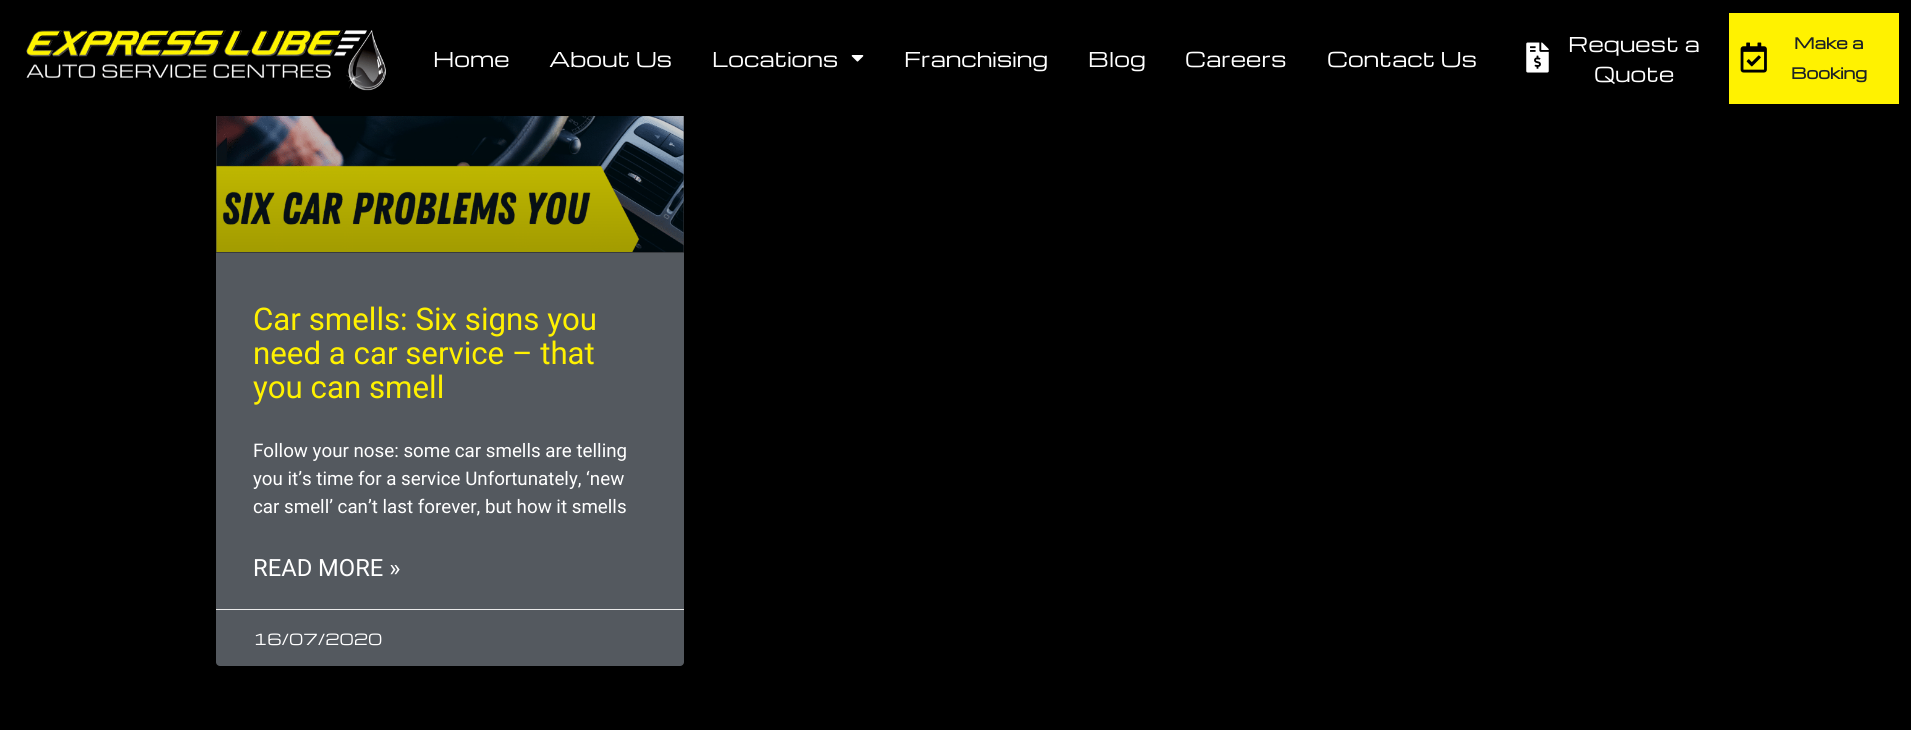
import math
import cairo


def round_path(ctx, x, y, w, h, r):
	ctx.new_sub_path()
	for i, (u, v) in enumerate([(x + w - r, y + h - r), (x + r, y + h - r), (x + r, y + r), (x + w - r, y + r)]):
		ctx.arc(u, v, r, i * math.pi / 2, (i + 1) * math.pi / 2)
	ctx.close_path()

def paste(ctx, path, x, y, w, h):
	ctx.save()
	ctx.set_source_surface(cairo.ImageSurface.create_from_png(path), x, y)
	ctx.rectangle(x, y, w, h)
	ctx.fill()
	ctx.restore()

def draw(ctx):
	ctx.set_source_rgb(0, 0, 0)
	ctx.paint()
	ctx.set_source_rgb(0.329, 0.349, 0.373)
	round_path(ctx, 216, -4, 468, 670, 4)
	ctx.fill()
	ctx.set_source_rgb(0, 0, 0)
	ctx.rectangle(216, 0, 468, 116)
	ctx.fill()
	paste(ctx, 'media/1.png', 26, 30, 360, 61)
	ctx.select_font_face('Michroma')
	ctx.set_font_size(20)
	ctx.set_source_rgb(1, 1, 1)
	for x, y, s in [
		(433, 67, 'Home'),
		(549, 67, 'About Us'),
		(712, 67, 'Locations'),
	]:
		ctx.move_to(x, y)
		ctx.show_text(s)
	paste(ctx, 'media/2.png', 851, 55, 13, 7)
	for x, y, s in [
		(904, 67, 'Franchising'),
		(1088, 67, 'Blog'),
		(1185, 67, 'Careers'),
		(1327, 67, 'Contact Us'),
	]:
		ctx.move_to(x, y)
		ctx.show_text(s)
	paste(ctx, 'media/3.png', 1526, 42, 23, 31)
	ctx.move_to(1568, 52)
	ctx.show_text('Request a')
	ctx.move_to(1594, 82)
	ctx.show_text('Quote')
	ctx.set_source_rgb(1, 0.949, 0)
	ctx.rectangle(1729, 13, 170, 91)
	ctx.fill()
	paste(ctx, 'media/4.png', 1740, 42, 27, 31)
	ctx.select_font_face('Michroma', cairo.FONT_SLANT_NORMAL, cairo.FONT_WEIGHT_BOLD)
	ctx.set_font_size(15)
	ctx.set_source_rgb(0.114, 0.133, 0.149)
	ctx.move_to(1794, 49)
	ctx.show_text('Make a')
	ctx.move_to(1791, 79)
	ctx.show_text('Booking')
	paste(ctx, 'media/5.png', 216, 116, 468, 136)
	gradient = cairo.LinearGradient(450, 253, 450, -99)
	gradient.add_color_stop_rgba(0, 0, 0, 0, 0.35)
	gradient.add_color_stop_rgba(0.75, 0, 0, 0, 0)
	ctx.set_source(gradient)
	ctx.rectangle(216, 116, 468, 137)
	ctx.fill()
	ctx.select_font_face('Roboto')
	ctx.set_font_size(31.25)
	ctx.set_source_rgb(1, 0.945, 0)
	for x, y, s in [
		(253, 330, 'Car smells: Six signs you'),
		(253, 364, 'need a car service – that'),
		(253, 398, 'you can smell'),
	]:
		ctx.move_to(x, y)
		ctx.show_text(s)
	ctx.set_font_size(18.75)
	ctx.set_source_rgb(1, 1, 1)
	for x, y, s in [
		(253, 457, 'Follow your nose: some car smells are telling'),
		(253, 485, 'you it’s time for a service Unfortunately, ‘new'),
		(253, 513, 'car smell’ can’t last forever, but how it smells'),
	]:
		ctx.move_to(x, y)
		ctx.show_text(s)
	ctx.set_font_size(23.75)
	ctx.move_to(253, 576)
	ctx.show_text('READ MORE »')
	ctx.set_source_rgb(0.918, 0.918, 0.918)
	ctx.rectangle(216, 609, 468, 1)
	ctx.fill()
	ctx.select_font_face('Michroma')
	ctx.set_font_size(15)
	ctx.set_source_rgb(1, 1, 1)
	ctx.move_to(253, 645)
	ctx.show_text('16/07/2020')


surface = cairo.ImageSurface(cairo.FORMAT_RGB24, 1911, 730)
ctx = cairo.Context(surface)
options = cairo.FontOptions()
options.set_hint_metrics(cairo.HINT_METRICS_OFF)
options.set_hint_style(cairo.HINT_STYLE_NONE)
ctx.set_font_options(options)
ctx.set_miter_limit(4)
draw(ctx)
surface.write_to_png('image.png')
